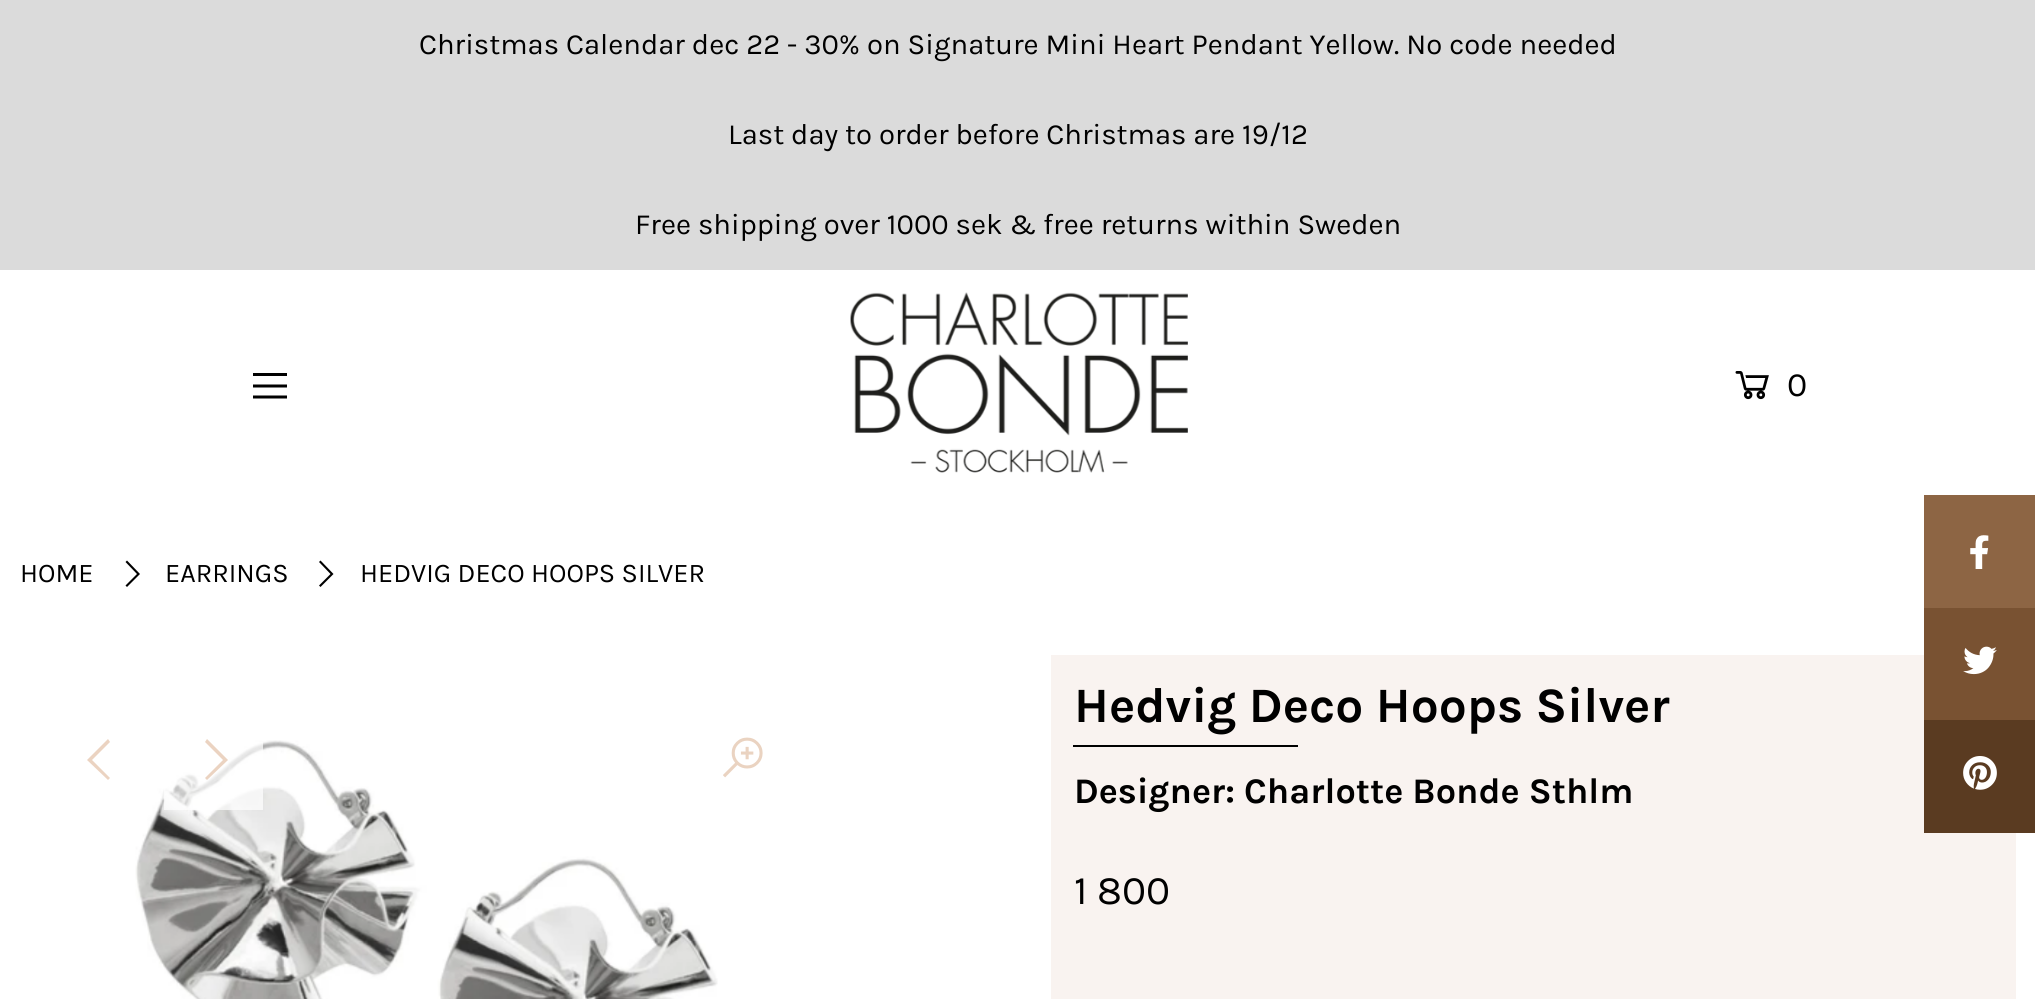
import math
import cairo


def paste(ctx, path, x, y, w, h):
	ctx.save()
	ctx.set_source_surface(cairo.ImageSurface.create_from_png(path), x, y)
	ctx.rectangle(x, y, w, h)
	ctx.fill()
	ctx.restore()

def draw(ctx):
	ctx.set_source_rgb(1, 1, 1)
	ctx.paint()
	ctx.set_source_rgb(0.859, 0.859, 0.859)
	ctx.rectangle(0, 0, 2035, 270)
	ctx.fill()
	ctx.select_font_face('Karla')
	ctx.set_font_size(29.25)
	ctx.set_source_rgb(0, 0, 0)
	for x, y, s in [
		(419, 54, 'Christmas Calendar dec 22 - 30% on Signature Mini Heart Pendant Yellow. No code needed'),
		(728, 144, 'Last day to order before Christmas are 19/12'),
		(635, 234, 'Free shipping over 1000 sek & free returns within Sweden'),
	]:
		ctx.move_to(x, y)
		ctx.show_text(s)
	ctx.new_path()
	ctx.move_to(253, 373)
	ctx.line_to(287, 373)
	ctx.line_to(287, 376)
	ctx.line_to(253, 376)
	ctx.close_path()
	ctx.move_to(253, 384.5)
	ctx.line_to(287, 384.5)
	ctx.line_to(287, 387.5)
	ctx.line_to(253, 387.5)
	ctx.close_path()
	ctx.move_to(253, 395.5)
	ctx.line_to(287, 395.5)
	ctx.line_to(287, 398.5)
	ctx.line_to(253, 398.5)
	ctx.close_path()
	ctx.fill()
	paste(ctx, 'media/1.png', 850, 292, 338, 181)
	paste(ctx, 'media/2.png', 1735, 371, 34, 29)
	ctx.set_font_size(34)
	ctx.move_to(1787, 396)
	ctx.show_text('0')
	ctx.set_font_size(27)
	ctx.move_to(20, 582)
	ctx.show_text('HOME')
	ctx.new_path()
	ctx.move_to(127, 560.5)
	ctx.line_to(140, 574)
	ctx.line_to(127, 587)
	ctx.line_to(125.5, 585.5)
	ctx.line_to(137, 574)
	ctx.line_to(125.5, 562)
	ctx.close_path()
	ctx.fill()
	ctx.move_to(165, 582)
	ctx.show_text('EARRINGS')
	ctx.new_path()
	ctx.move_to(320.5, 560.5)
	ctx.line_to(333.5, 574)
	ctx.line_to(320.5, 587)
	ctx.line_to(319, 585.5)
	ctx.line_to(330.5, 574)
	ctx.line_to(319, 562)
	ctx.close_path()
	ctx.fill()
	ctx.move_to(360, 582)
	ctx.show_text('HEDVIG DECO HOOPS SILVER')
	ctx.set_source_rgb(0.918, 0.827, 0.757)
	ctx.new_path()
	ctx.move_to(108, 739)
	ctx.line_to(110, 742)
	ctx.line_to(92, 760)
	ctx.line_to(110, 778)
	ctx.line_to(108, 780)
	ctx.line_to(87, 760)
	ctx.close_path()
	ctx.fill()
	paste(ctx, 'media/3.png', 135, 740, 583, 259)
	paste(ctx, 'media/4.png', 723, 737, 40, 41)
	ctx.set_source_rgba(1, 1, 1, 0.7)
	ctx.rectangle(164, 742, 99, 68)
	ctx.fill()
	ctx.set_source_rgb(0.918, 0.827, 0.757)
	ctx.new_path()
	ctx.move_to(207, 739)
	ctx.line_to(228, 760)
	ctx.line_to(207, 780)
	ctx.line_to(205, 778)
	ctx.line_to(223, 760)
	ctx.line_to(205, 742)
	ctx.close_path()
	ctx.fill()
	ctx.set_source_rgb(0.973, 0.953, 0.941)
	ctx.rectangle(1051, 655, 965, 344)
	ctx.fill()
	ctx.select_font_face('Karla', cairo.FONT_SLANT_NORMAL, cairo.FONT_WEIGHT_BOLD)
	ctx.set_font_size(49.5)
	ctx.set_source_rgb(0, 0, 0)
	ctx.move_to(1074, 722)
	ctx.show_text('Hedvig Deco Hoops Silver')
	ctx.rectangle(1073, 745, 225, 2)
	ctx.fill()
	ctx.set_font_size(36)
	ctx.move_to(1074, 803)
	ctx.show_text('Designer: Charlotte Bonde Sthlm')
	ctx.select_font_face('Karla')
	ctx.set_font_size(40.5)
	ctx.move_to(1074, 904)
	ctx.show_text('1 800')
	ctx.set_source_rgb(0.553, 0.396, 0.267)
	ctx.rectangle(1924, 495, 111, 113)
	ctx.fill()
	paste(ctx, 'media/5.png', 1970, 535, 19, 34)
	ctx.set_source_rgb(0.475, 0.322, 0.196)
	ctx.rectangle(1924, 608, 111, 112)
	ctx.fill()
	paste(ctx, 'media/6.png', 1963, 646, 34, 29)
	ctx.set_source_rgb(0.353, 0.231, 0.129)
	ctx.rectangle(1924, 720, 111, 113)
	ctx.fill()
	paste(ctx, 'media/7.png', 1963, 756, 34, 34)


surface = cairo.ImageSurface(cairo.FORMAT_RGB24, 2035, 999)
ctx = cairo.Context(surface)
options = cairo.FontOptions()
options.set_hint_metrics(cairo.HINT_METRICS_OFF)
options.set_hint_style(cairo.HINT_STYLE_NONE)
ctx.set_font_options(options)
ctx.set_miter_limit(4)
draw(ctx)
surface.write_to_png('image.png')
